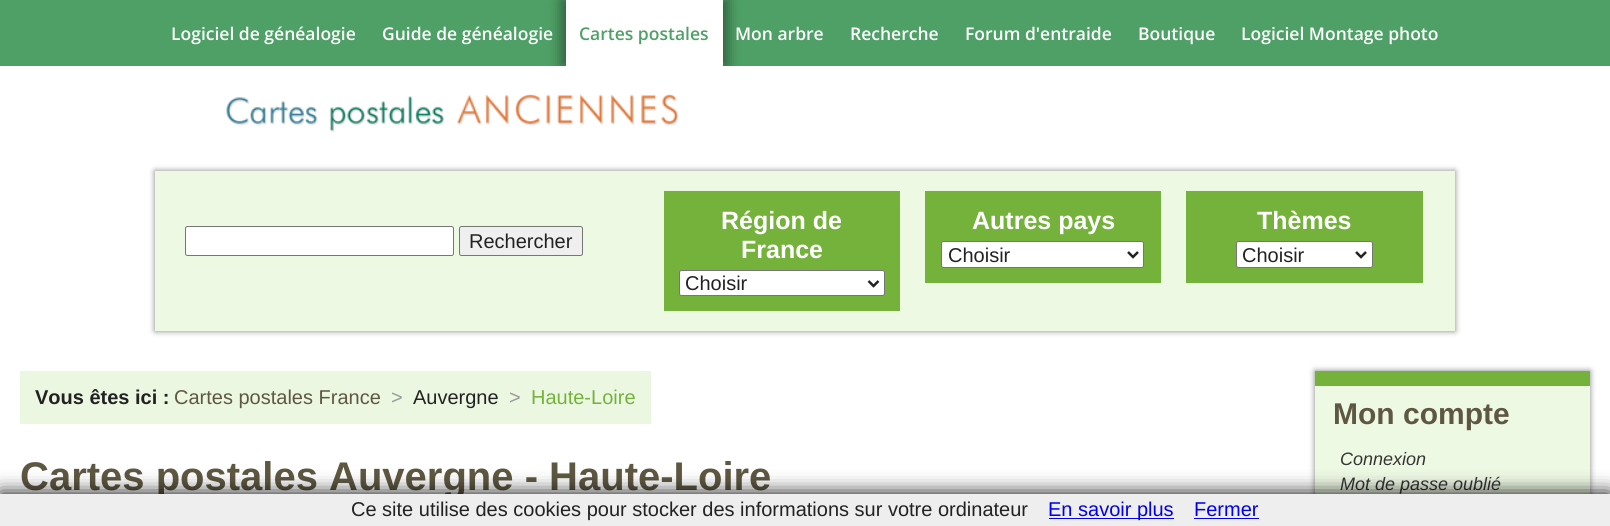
import math
import cairo


def round_path(ctx, x, y, w, h, r):
	ctx.new_sub_path()
	for i, (u, v) in enumerate([(x + w - r, y + h - r), (x + r, y + h - r), (x + r, y + r), (x + w - r, y + r)]):
		ctx.arc(u, v, r, i * math.pi / 2, (i + 1) * math.pi / 2)
	ctx.close_path()

def blur_box(ctx, x, y, w, h, r, blur, alpha):
	ctx.push_group_with_content(cairo.CONTENT_ALPHA)
	ctx.set_operator(cairo.OPERATOR_SOURCE)
	for i in range(15, -16, -2):
		e = blur * i / 6
		if min(w, h) + 2 * e > 0:
			ctx.set_source_rgba(0, 0, 0, alpha * math.erfc((i - 1) / 8.5) / 2)
			round_path(ctx, x - e, y - e, w + 2 * e, h + 2 * e, max(0, min(r + e + blur * .6, min(w, h) / 2 + e)))
			ctx.fill()
	ctx.mask(ctx.pop_group())

def paste(ctx, path, x, y, w, h):
	ctx.save()
	ctx.set_source_surface(cairo.ImageSurface.create_from_png(path), x, y)
	ctx.rectangle(x, y, w, h)
	ctx.fill()
	ctx.restore()

def draw(ctx):
	ctx.set_source_rgb(1, 1, 1)
	ctx.paint()
	ctx.set_source_rgb(0.31, 0.627, 0.4)
	ctx.rectangle(0, 0, 1610, 66)
	ctx.fill()
	ctx.select_font_face('Open Sans SemiBold')
	ctx.set_font_size(17.5)
	ctx.set_source_rgb(1, 1, 1)
	ctx.move_to(171, 40)
	ctx.show_text('Logiciel de généalogie')
	ctx.move_to(382, 40)
	ctx.show_text('Guide de généalogie')
	ctx.save()
	ctx.rectangle(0, 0, 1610, 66)
	ctx.clip()
	ctx.set_source_rgb(0, 0, 0)
	blur_box(ctx, 560, 0, 156, 66, 0, 6, 0.35)
	blur_box(ctx, 573, 0, 156, 66, 0, 6, 0.35)
	ctx.restore()
	ctx.rectangle(566, 0, 157, 66)
	ctx.fill()
	ctx.set_source_rgb(0.31, 0.627, 0.4)
	ctx.move_to(579, 40)
	ctx.show_text('Cartes postales')
	ctx.set_source_rgb(1, 1, 1)
	for x, y, s in [
		(735, 40, 'Mon arbre'),
		(850, 40, 'Recherche'),
		(965, 40, 'Forum d\'entraide'),
		(1138, 40, 'Boutique'),
		(1241, 40, 'Logiciel Montage photo'),
	]:
		ctx.move_to(x, y)
		ctx.show_text(s)
	paste(ctx, 'media/1.png', 226, 94, 453, 39)
	ctx.set_source_rgb(0, 0, 0)
	blur_box(ctx, 155, 171, 1300, 160, 0, 3, 0.5)
	ctx.set_source_rgb(0.933, 0.973, 0.894)
	ctx.rectangle(155, 171, 1300, 160)
	ctx.fill()
	ctx.set_source_rgb(1, 1, 1)
	round_path(ctx, 185.5, 226.5, 268, 29, 2)
	ctx.fill_preserve()
	ctx.set_source_rgb(0.463, 0.463, 0.463)
	ctx.set_line_width(1)
	ctx.stroke()
	ctx.set_source_rgb(0.937, 0.937, 0.937)
	round_path(ctx, 459.5, 226.5, 123, 29, 2)
	ctx.fill_preserve()
	ctx.set_source_rgb(0.463, 0.463, 0.463)
	ctx.stroke()
	ctx.select_font_face('Liberation Sans')
	ctx.set_font_size(20)
	ctx.set_source_rgb(0.133, 0.133, 0.133)
	ctx.move_to(469, 248)
	ctx.show_text('Rechercher')
	ctx.set_source_rgb(0.455, 0.698, 0.235)
	ctx.rectangle(664, 191, 236, 120)
	ctx.fill()
	ctx.select_font_face('Liberation Sans', cairo.FONT_SLANT_NORMAL, cairo.FONT_WEIGHT_BOLD)
	ctx.set_font_size(25)
	ctx.set_source_rgb(1, 1, 1)
	ctx.move_to(721, 229)
	ctx.show_text('Région de')
	ctx.move_to(741, 258)
	ctx.show_text('France')
	round_path(ctx, 679.5, 270.5, 205, 25, 2)
	ctx.fill_preserve()
	ctx.set_source_rgb(0.463, 0.463, 0.463)
	ctx.stroke()
	ctx.new_path()
	ctx.move_to(868.5, 281)
	ctx.line_to(873.5, 286)
	ctx.line_to(878.5, 281)
	ctx.set_source_rgb(0.133, 0.133, 0.133)
	ctx.set_line_width(2.5)
	ctx.stroke()
	ctx.select_font_face('Liberation Sans')
	ctx.set_font_size(20)
	ctx.move_to(685, 290)
	ctx.show_text('Choisir')
	ctx.set_source_rgb(0.455, 0.698, 0.235)
	ctx.rectangle(925, 191, 236, 92)
	ctx.fill()
	ctx.select_font_face('Liberation Sans', cairo.FONT_SLANT_NORMAL, cairo.FONT_WEIGHT_BOLD)
	ctx.set_font_size(25)
	ctx.set_source_rgb(1, 1, 1)
	ctx.move_to(972, 229)
	ctx.show_text('Autres pays')
	round_path(ctx, 941.5, 241.5, 202, 26, 2)
	ctx.fill_preserve()
	ctx.set_source_rgb(0.463, 0.463, 0.463)
	ctx.set_line_width(1)
	ctx.stroke()
	ctx.new_path()
	ctx.move_to(1128, 252)
	ctx.line_to(1133, 257)
	ctx.line_to(1138, 252)
	ctx.set_source_rgb(0.133, 0.133, 0.133)
	ctx.set_line_width(2.5)
	ctx.stroke()
	ctx.select_font_face('Liberation Sans')
	ctx.set_font_size(20)
	ctx.move_to(948, 262)
	ctx.show_text('Choisir')
	ctx.set_source_rgb(0.455, 0.698, 0.235)
	ctx.rectangle(1186, 191, 237, 92)
	ctx.fill()
	ctx.select_font_face('Liberation Sans', cairo.FONT_SLANT_NORMAL, cairo.FONT_WEIGHT_BOLD)
	ctx.set_font_size(25)
	ctx.set_source_rgb(1, 1, 1)
	ctx.move_to(1257, 229)
	ctx.show_text('Thèmes')
	round_path(ctx, 1236.5, 241.5, 136, 26, 2)
	ctx.fill_preserve()
	ctx.set_source_rgb(0.463, 0.463, 0.463)
	ctx.set_line_width(1)
	ctx.stroke()
	ctx.new_path()
	ctx.move_to(1356, 252)
	ctx.line_to(1361, 257)
	ctx.line_to(1366, 252)
	ctx.set_source_rgb(0.133, 0.133, 0.133)
	ctx.set_line_width(2.5)
	ctx.stroke()
	ctx.select_font_face('Liberation Sans')
	ctx.set_font_size(20)
	ctx.move_to(1242, 262)
	ctx.show_text('Choisir')
	ctx.set_source_rgb(0.925, 0.965, 0.886)
	ctx.rectangle(20, 371, 631, 53)
	ctx.fill()
	ctx.select_font_face('Liberation Sans', cairo.FONT_SLANT_NORMAL, cairo.FONT_WEIGHT_BOLD)
	ctx.set_source_rgb(0.133, 0.133, 0.133)
	ctx.move_to(35, 404)
	ctx.show_text('Vous êtes ici :')
	ctx.select_font_face('Liberation Sans')
	ctx.set_source_rgb(0.369, 0.345, 0.259)
	ctx.move_to(174, 404)
	ctx.show_text('Cartes postales France')
	ctx.set_source_rgb(0.6, 0.6, 0.6)
	ctx.move_to(391, 404)
	ctx.show_text('>')
	ctx.set_source_rgb(0.133, 0.133, 0.133)
	ctx.move_to(413, 404)
	ctx.show_text('Auvergne')
	ctx.set_source_rgb(0.6, 0.6, 0.6)
	ctx.move_to(509, 404)
	ctx.show_text('>')
	ctx.set_source_rgb(0.455, 0.698, 0.235)
	ctx.move_to(531, 404)
	ctx.show_text('Haute-Loire')
	ctx.select_font_face('Liberation Sans', cairo.FONT_SLANT_NORMAL, cairo.FONT_WEIGHT_BOLD)
	ctx.set_font_size(40)
	ctx.set_source_rgb(0.369, 0.345, 0.259)
	ctx.move_to(20, 490)
	ctx.show_text('Cartes postales Auvergne - Haute-Loire')
	ctx.set_source_rgb(0, 0, 0)
	blur_box(ctx, 1315, 371, 275, 138, 0, 3, 0.5)
	ctx.set_source_rgb(0.933, 0.973, 0.894)
	ctx.rectangle(1315, 386, 275, 108)
	ctx.fill()
	ctx.set_source_rgb(0.455, 0.698, 0.235)
	ctx.rectangle(1315, 371, 275, 15)
	ctx.fill()
	ctx.set_font_size(30)
	ctx.set_source_rgb(0.369, 0.345, 0.259)
	ctx.move_to(1333, 424)
	ctx.show_text('Mon compte')
	ctx.select_font_face('Liberation Sans', cairo.FONT_SLANT_ITALIC)
	ctx.set_font_size(18)
	ctx.set_source_rgb(0.208, 0.208, 0.208)
	ctx.move_to(1340, 465)
	ctx.show_text('Connexion')
	ctx.move_to(1340, 490)
	ctx.show_text('Mot de passe oublié')
	ctx.set_source_rgb(0, 0, 0)
	blur_box(ctx, 0, 494, 1610, 32, 0, 10, 1)
	ctx.set_source_rgb(0.933, 0.933, 0.933)
	ctx.rectangle(0, 494, 1610, 32)
	ctx.fill()
	ctx.select_font_face('Liberation Sans')
	ctx.set_font_size(20)
	ctx.set_source_rgb(0.133, 0.133, 0.133)
	ctx.move_to(351, 516)
	ctx.show_text('Ce site utilise des cookies pour stocker des informations sur votre ordinateur')
	ctx.set_source_rgb(0, 0, 0.933)
	ctx.rectangle(1049, 518, 125, 1)
	ctx.fill()
	ctx.move_to(1048, 516)
	ctx.show_text('En savoir plus')
	ctx.move_to(1194, 516)
	ctx.show_text('Fermer')
	ctx.rectangle(1194, 518, 65, 1)
	ctx.fill()


surface = cairo.ImageSurface(cairo.FORMAT_RGB24, 1610, 526)
ctx = cairo.Context(surface)
options = cairo.FontOptions()
options.set_hint_metrics(cairo.HINT_METRICS_OFF)
options.set_hint_style(cairo.HINT_STYLE_NONE)
ctx.set_font_options(options)
ctx.set_miter_limit(4)
draw(ctx)
surface.write_to_png('image.png')
